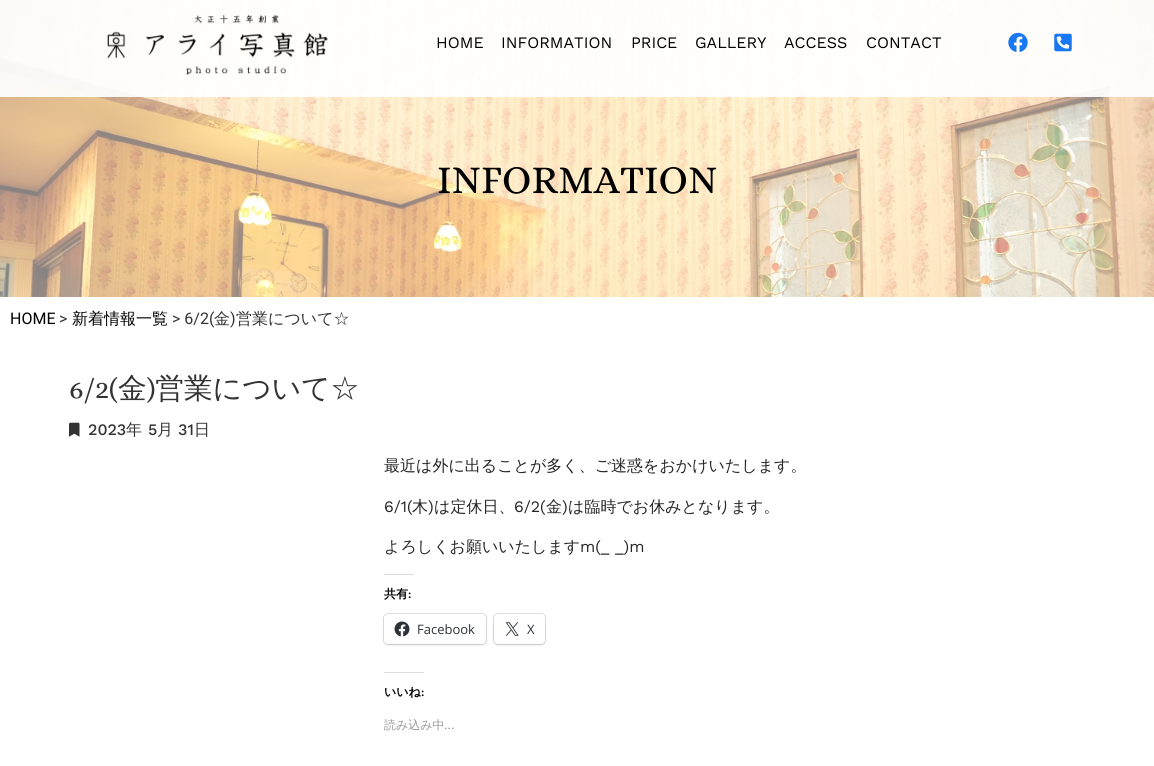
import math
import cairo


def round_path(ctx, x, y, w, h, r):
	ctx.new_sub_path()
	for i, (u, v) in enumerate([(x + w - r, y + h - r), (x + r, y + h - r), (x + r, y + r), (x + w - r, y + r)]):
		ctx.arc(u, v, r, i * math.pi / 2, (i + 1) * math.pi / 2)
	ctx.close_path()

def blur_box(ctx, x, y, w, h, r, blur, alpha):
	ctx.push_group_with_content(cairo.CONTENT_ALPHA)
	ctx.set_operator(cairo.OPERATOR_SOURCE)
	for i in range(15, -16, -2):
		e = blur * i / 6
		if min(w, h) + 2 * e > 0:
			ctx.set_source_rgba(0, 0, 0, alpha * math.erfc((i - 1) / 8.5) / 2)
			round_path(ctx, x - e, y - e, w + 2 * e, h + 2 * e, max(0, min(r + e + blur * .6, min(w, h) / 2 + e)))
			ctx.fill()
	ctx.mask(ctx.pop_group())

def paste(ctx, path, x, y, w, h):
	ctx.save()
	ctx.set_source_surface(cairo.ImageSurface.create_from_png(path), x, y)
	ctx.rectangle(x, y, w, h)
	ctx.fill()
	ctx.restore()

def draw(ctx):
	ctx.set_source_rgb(1, 1, 1)
	ctx.paint()
	paste(ctx, 'media/4.png', 0, 0, 1154, 297)
	ctx.set_source_rgba(1, 1, 1, 0.92)
	ctx.rectangle(0, 0, 1154, 97)
	ctx.fill()
	paste(ctx, 'media/1.png', 107, 14, 221, 61)
	ctx.select_font_face('Work Sans')
	ctx.set_font_size(16)
	ctx.set_source_rgb(0, 0, 0)
	for x, y, s in [
		(436, 48, 'HOME'),
		(501, 48, 'INFORMATION'),
		(631, 48, 'PRICE'),
		(695, 48, 'GALLERY'),
		(784, 48, 'ACCESS'),
		(866, 48, 'CONTACT'),
	]:
		ctx.move_to(x, y)
		ctx.show_text(s)
	paste(ctx, 'media/2.png', 1008, 32, 20, 20)
	paste(ctx, 'media/3.png', 1054, 33, 18, 19)
	ctx.select_font_face('Alice')
	ctx.set_font_size(40)
	ctx.move_to(437, 193)
	ctx.show_text('INFORMATION')
	ctx.select_font_face('Roboto')
	ctx.set_font_size(16)
	ctx.move_to(10, 324)
	ctx.show_text('HOME')
	ctx.set_source_rgb(0.2, 0.2, 0.2)
	ctx.move_to(59, 324)
	ctx.show_text('>')
	ctx.select_font_face('WenQuanYi Zen Hei Medium')
	ctx.set_source_rgb(0, 0, 0)
	ctx.move_to(72, 324)
	ctx.show_text('新着情報一覧')
	ctx.select_font_face('Roboto')
	ctx.set_source_rgb(0.2, 0.2, 0.2)
	ctx.move_to(172, 324)
	ctx.show_text('> 6/2(')
	ctx.select_font_face('WenQuanYi Zen Hei Medium')
	ctx.move_to(214, 324)
	ctx.show_text('金')
	ctx.select_font_face('Roboto')
	ctx.move_to(230, 324)
	ctx.show_text(')')
	ctx.select_font_face('WenQuanYi Zen Hei Medium')
	ctx.move_to(236, 324)
	ctx.show_text('営業について☆')
	ctx.select_font_face('Alice')
	ctx.set_font_size(28.75)
	ctx.move_to(69, 398)
	ctx.show_text('6/2(')
	ctx.select_font_face('WenQuanYi Zen Hei Medium')
	ctx.move_to(118, 398)
	ctx.show_text('金 営業について☆')
	ctx.select_font_face('Alice')
	ctx.move_to(147, 398)
	ctx.show_text(')')
	paste(ctx, 'media/5.png', 69, 422, 11, 15)
	ctx.select_font_face('Work Sans Medium')
	ctx.set_font_size(16)
	ctx.move_to(88, 435)
	ctx.show_text('2023')
	ctx.select_font_face('WenQuanYi Zen Hei Medium')
	ctx.move_to(126, 435)
	ctx.show_text('年')
	ctx.select_font_face('Work Sans Medium')
	ctx.move_to(148, 435)
	ctx.show_text('5')
	ctx.select_font_face('WenQuanYi Zen Hei Medium')
	ctx.move_to(157, 435)
	ctx.show_text('月')
	ctx.select_font_face('Work Sans Medium')
	ctx.move_to(178, 435)
	ctx.show_text('31')
	ctx.select_font_face('WenQuanYi Zen Hei Medium')
	ctx.move_to(194, 435)
	ctx.show_text('日')
	ctx.set_source_rgb(0.145, 0.145, 0.145)
	ctx.move_to(384, 471)
	ctx.show_text('最近は外に出ることが多く、ご迷惑をおかけいたします。')
	ctx.select_font_face('Work Sans')
	ctx.move_to(384, 512)
	ctx.show_text('6/1(')
	ctx.select_font_face('WenQuanYi Zen Hei Medium')
	ctx.move_to(412, 512)
	ctx.show_text('木')
	ctx.select_font_face('Work Sans')
	ctx.move_to(428, 512)
	ctx.show_text(')')
	ctx.select_font_face('WenQuanYi Zen Hei Medium')
	ctx.move_to(434, 512)
	ctx.show_text('は定休日、')
	ctx.select_font_face('Work Sans')
	ctx.move_to(514, 512)
	ctx.show_text('6/2(')
	ctx.select_font_face('WenQuanYi Zen Hei Medium')
	ctx.move_to(546, 512)
	ctx.show_text('金')
	ctx.select_font_face('Work Sans')
	ctx.move_to(562, 512)
	ctx.show_text(')')
	ctx.select_font_face('WenQuanYi Zen Hei Medium')
	ctx.move_to(568, 512)
	ctx.show_text('は臨時でお休みとなります。')
	ctx.move_to(384, 552)
	ctx.show_text('よろしくお願いいたします')
	ctx.select_font_face('Work Sans')
	ctx.move_to(580, 552)
	ctx.show_text('m(_ _)m')
	ctx.set_source_rgb(0.863, 0.863, 0.871)
	ctx.rectangle(384, 574, 30, 1)
	ctx.fill()
	ctx.select_font_face('WenQuanYi Zen Hei', cairo.FONT_SLANT_NORMAL, cairo.FONT_WEIGHT_BOLD)
	ctx.set_font_size(12)
	ctx.set_source_rgb(0, 0, 0)
	ctx.move_to(384, 598)
	ctx.show_text('共有')
	ctx.select_font_face('Alice', cairo.FONT_SLANT_NORMAL, cairo.FONT_WEIGHT_BOLD)
	ctx.move_to(408, 598)
	ctx.show_text(':')
	round_path(ctx, 383.5, 613.5, 103, 31, 4.5)
	ctx.set_source_rgb(0.878, 0.878, 0.878)
	ctx.set_line_width(1)
	ctx.stroke()
	ctx.set_source_rgb(0, 0, 0)
	blur_box(ctx, 384, 615, 102, 30, 4, 1, 0.12)
	ctx.set_source_rgb(1, 1, 1)
	round_path(ctx, 384, 614, 102, 30, 4)
	ctx.fill()
	paste(ctx, 'media/6.png', 394, 621, 16, 16)
	ctx.select_font_face('Open Sans')
	ctx.set_font_size(13)
	ctx.set_source_rgb(0.173, 0.2, 0.22)
	ctx.move_to(417, 634)
	ctx.show_text('Facebook')
	round_path(ctx, 493.5, 613.5, 52, 31, 4.5)
	ctx.set_source_rgb(0.878, 0.878, 0.878)
	ctx.stroke()
	ctx.set_source_rgb(0, 0, 0)
	blur_box(ctx, 494, 615, 51, 30, 4, 1, 0.12)
	ctx.set_source_rgb(1, 1, 1)
	round_path(ctx, 494, 614, 51, 30, 4)
	ctx.fill()
	paste(ctx, 'media/7.png', 505, 622, 14, 14)
	ctx.set_source_rgb(0.173, 0.2, 0.22)
	ctx.move_to(527, 634)
	ctx.show_text('X')
	ctx.set_source_rgb(0.863, 0.863, 0.871)
	ctx.rectangle(384, 672, 40, 1)
	ctx.fill()
	ctx.select_font_face('WenQuanYi Zen Hei', cairo.FONT_SLANT_NORMAL, cairo.FONT_WEIGHT_BOLD)
	ctx.set_font_size(12)
	ctx.set_source_rgb(0, 0, 0)
	ctx.move_to(384, 696)
	ctx.show_text('いいね')
	ctx.select_font_face('Alice', cairo.FONT_SLANT_NORMAL, cairo.FONT_WEIGHT_BOLD)
	ctx.move_to(421, 696)
	ctx.show_text(':')
	ctx.select_font_face('WenQuanYi Zen Hei Medium')
	ctx.set_source_rgb(0.6, 0.6, 0.6)
	ctx.move_to(384, 729)
	ctx.show_text('読み込み中')
	ctx.select_font_face('Work Sans')
	ctx.move_to(444, 729)
	ctx.show_text('…')


surface = cairo.ImageSurface(cairo.FORMAT_RGB24, 1154, 766)
ctx = cairo.Context(surface)
options = cairo.FontOptions()
options.set_hint_metrics(cairo.HINT_METRICS_OFF)
options.set_hint_style(cairo.HINT_STYLE_NONE)
ctx.set_font_options(options)
ctx.set_miter_limit(4)
draw(ctx)
surface.write_to_png('image.png')
